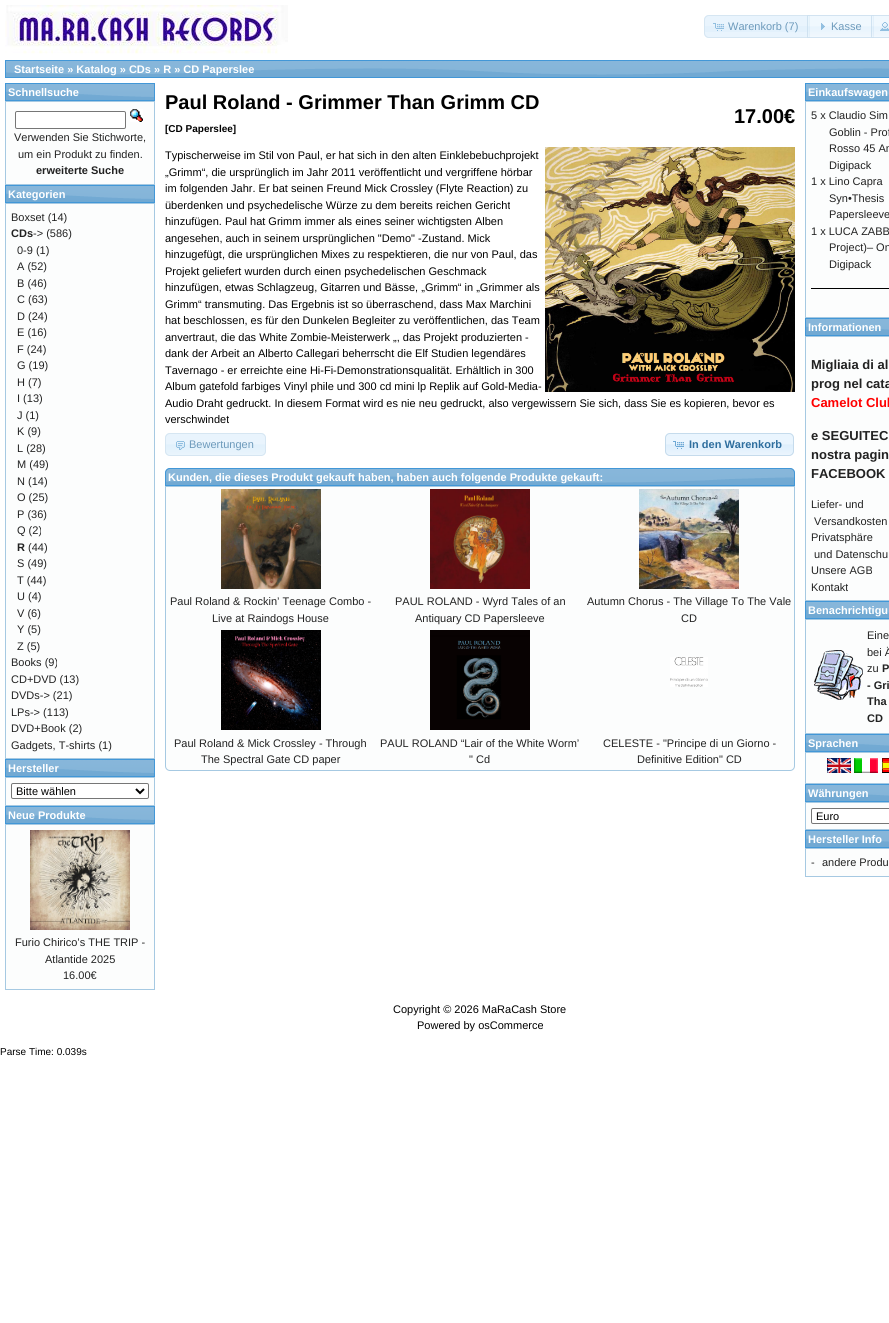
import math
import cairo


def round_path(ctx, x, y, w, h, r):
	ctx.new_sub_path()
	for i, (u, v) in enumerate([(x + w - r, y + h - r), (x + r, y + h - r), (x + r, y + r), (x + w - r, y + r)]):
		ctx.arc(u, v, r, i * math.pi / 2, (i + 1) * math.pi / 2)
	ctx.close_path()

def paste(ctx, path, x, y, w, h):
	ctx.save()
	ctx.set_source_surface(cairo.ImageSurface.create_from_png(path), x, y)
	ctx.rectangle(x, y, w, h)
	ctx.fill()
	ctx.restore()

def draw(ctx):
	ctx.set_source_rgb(1, 1, 1)
	ctx.paint()
	paste(ctx, 'media/1.png', 5, 5, 283, 49)
	ctx.set_source_rgb(0.914, 0.957, 0.992)
	ctx.new_path()
	ctx.move_to(709, 15)
	ctx.line_to(810, 15)
	ctx.line_to(810, 38)
	ctx.line_to(709, 38)
	ctx.curve_to(706, 38, 704, 36, 704, 33)
	ctx.line_to(704, 20)
	ctx.curve_to(704, 17, 706, 15, 709, 15)
	ctx.close_path()
	ctx.fill()
	ctx.set_source_rgb(0.89, 0.945, 0.988)
	ctx.rectangle(704, 26, 106, 6)
	ctx.fill()
	ctx.new_path()
	ctx.move_to(709, 15.5)
	ctx.line_to(809.5, 15.5)
	ctx.line_to(809.5, 37.5)
	ctx.line_to(709, 37.5)
	ctx.curve_to(706.5, 37.5, 704.5, 35.5, 704.5, 33)
	ctx.line_to(704.5, 20)
	ctx.curve_to(704.5, 17.5, 706.5, 15.5, 709, 15.5)
	ctx.close_path()
	ctx.set_source_rgb(0.839, 0.902, 0.949)
	ctx.set_line_width(1)
	ctx.stroke()
	paste(ctx, 'media/2.png', 713, 23, 11, 8)
	ctx.select_font_face('Liberation Sans')
	ctx.set_font_size(11)
	ctx.set_source_rgb(0.427, 0.604, 0.733)
	ctx.move_to(728, 30)
	ctx.show_text('Warenkorb (7)')
	paste(ctx, 'media/3.png', 807, 15, 67, 23)
	ctx.rectangle(807.5, 15.5, 66, 22)
	ctx.set_source_rgba(0.773, 0.859, 0.925, 0.7)
	ctx.stroke()
	paste(ctx, 'media/4.png', 821, 23, 4, 7)
	ctx.set_source_rgb(0.427, 0.604, 0.733)
	ctx.move_to(831, 30)
	ctx.show_text('Kasse')
	paste(ctx, 'media/5.png', 871, 15, 18, 23)
	ctx.rectangle(871.5, 15.5, 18, 22)
	ctx.set_source_rgba(0.773, 0.859, 0.925, 0.7)
	ctx.stroke()
	paste(ctx, 'media/6.png', 880, 22, 9, 9)
	paste(ctx, 'media/7.png', 6, 61, 883, 16)
	ctx.rectangle(5.5, 60.5, 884, 17)
	ctx.set_source_rgb(0.259, 0.592, 0.843)
	ctx.stroke()
	ctx.select_font_face('Liberation Sans', cairo.FONT_SLANT_NORMAL, cairo.FONT_WEIGHT_BOLD)
	ctx.set_source_rgb(1, 1, 1)
	ctx.move_to(14, 73)
	ctx.show_text('Startseite » Katalog » CDs » R » CD Paperslee')
	paste(ctx, 'media/8.png', 6, 84, 148, 16)
	ctx.rectangle(5.5, 83.5, 149, 17)
	ctx.set_source_rgb(0.259, 0.592, 0.843)
	ctx.stroke()
	ctx.set_source_rgb(1, 1, 1)
	ctx.move_to(8, 96)
	ctx.show_text('Schnellsuche')
	ctx.set_source_rgb(0.988, 0.992, 0.992)
	ctx.rectangle(5.5, 101.5, 149, 83)
	ctx.fill_preserve()
	ctx.set_source_rgb(0.651, 0.788, 0.886)
	ctx.stroke()
	ctx.set_source_rgb(1, 1, 1)
	round_path(ctx, 15.5, 111.5, 110, 17, 1.5)
	ctx.fill_preserve()
	ctx.set_source_rgb(0.463, 0.463, 0.463)
	ctx.stroke()
	paste(ctx, 'media/9.png', 130, 109, 13, 13)
	ctx.select_font_face('Liberation Sans')
	ctx.set_source_rgb(0.133, 0.133, 0.133)
	ctx.move_to(14, 141)
	ctx.show_text('Verwenden Sie Stichworte,')
	ctx.move_to(18, 158)
	ctx.show_text('um ein Produkt zu finden.')
	ctx.select_font_face('Liberation Sans', cairo.FONT_SLANT_NORMAL, cairo.FONT_WEIGHT_BOLD)
	ctx.move_to(36, 174)
	ctx.show_text('erweiterte Suche')
	paste(ctx, 'media/8.png', 6, 186, 148, 16)
	ctx.rectangle(5.5, 185.5, 149, 17)
	ctx.set_source_rgb(0.259, 0.592, 0.843)
	ctx.stroke()
	ctx.set_source_rgb(1, 1, 1)
	ctx.move_to(8, 198)
	ctx.show_text('Kategorien')
	ctx.set_source_rgb(0.988, 0.992, 0.992)
	ctx.rectangle(5.5, 203.5, 149, 555)
	ctx.fill_preserve()
	ctx.set_source_rgb(0.651, 0.788, 0.886)
	ctx.stroke()
	ctx.select_font_face('Liberation Sans')
	ctx.set_source_rgb(0.133, 0.133, 0.133)
	ctx.move_to(11, 221)
	ctx.show_text('Boxset (14)')
	ctx.select_font_face('Liberation Sans', cairo.FONT_SLANT_NORMAL, cairo.FONT_WEIGHT_BOLD)
	ctx.move_to(11, 237)
	ctx.show_text('CDs')
	ctx.select_font_face('Liberation Sans')
	for x, y, s in [
		(33, 237, '-> (586)'),
		(17, 254, '0-9 (1)'),
		(17, 270, 'A (52)'),
		(17, 287, 'B (46)'),
		(17, 303, 'C (63)'),
		(17, 320, 'D (24)'),
		(17, 336, 'E (16)'),
		(17, 353, 'F (24)'),
		(17, 369, 'G (19)'),
		(17, 386, 'H (7)'),
		(17, 402, 'I (13)'),
		(17, 419, 'J (1)'),
		(17, 435, 'K (9)'),
		(17, 452, 'L (28)'),
		(17, 468, 'M (49)'),
		(17, 485, 'N (14)'),
		(17, 501, 'O (25)'),
		(17, 518, 'P (36)'),
		(17, 534, 'Q (2)'),
	]:
		ctx.move_to(x, y)
		ctx.show_text(s)
	ctx.select_font_face('Liberation Sans', cairo.FONT_SLANT_NORMAL, cairo.FONT_WEIGHT_BOLD)
	ctx.move_to(17, 551)
	ctx.show_text('R')
	ctx.select_font_face('Liberation Sans')
	for x, y, s in [
		(28, 551, '(44)'),
		(17, 567, 'S (49)'),
		(17, 584, 'T (44)'),
		(17, 600, 'U (4)'),
		(17, 617, 'V (6)'),
		(17, 633, 'Y (5)'),
		(17, 650, 'Z (5)'),
		(11, 666, 'Books (9)'),
		(11, 683, 'CD+DVD (13)'),
		(11, 699, 'DVDs-> (21)'),
		(11, 716, 'LPs-> (113)'),
		(11, 732, 'DVD+Book (2)'),
		(11, 749, 'Gadgets, T-shirts (1)'),
	]:
		ctx.move_to(x, y)
		ctx.show_text(s)
	paste(ctx, 'media/8.png', 6, 760, 148, 16)
	ctx.rectangle(5.5, 759.5, 149, 17)
	ctx.set_source_rgb(0.259, 0.592, 0.843)
	ctx.stroke()
	ctx.select_font_face('Liberation Sans', cairo.FONT_SLANT_NORMAL, cairo.FONT_WEIGHT_BOLD)
	ctx.set_source_rgb(1, 1, 1)
	ctx.move_to(8, 772)
	ctx.show_text('Hersteller')
	ctx.set_source_rgb(0.988, 0.992, 0.992)
	ctx.rectangle(5.5, 777.5, 149, 28)
	ctx.fill_preserve()
	ctx.set_source_rgb(0.651, 0.788, 0.886)
	ctx.stroke()
	ctx.set_source_rgb(1, 1, 1)
	round_path(ctx, 11.5, 783.5, 137, 15, 1.5)
	ctx.fill_preserve()
	ctx.set_source_rgb(0.463, 0.463, 0.463)
	ctx.stroke()
	ctx.new_path()
	ctx.move_to(136, 789)
	ctx.line_to(140, 793)
	ctx.line_to(144, 789)
	ctx.set_source_rgb(0, 0, 0)
	ctx.set_line_width(2)
	ctx.stroke()
	ctx.select_font_face('Liberation Sans')
	ctx.move_to(16, 795)
	ctx.show_text('Bitte wählen')
	paste(ctx, 'media/8.png', 6, 807, 148, 16)
	ctx.rectangle(5.5, 806.5, 149, 17)
	ctx.set_source_rgb(0.259, 0.592, 0.843)
	ctx.set_line_width(1)
	ctx.stroke()
	ctx.select_font_face('Liberation Sans', cairo.FONT_SLANT_NORMAL, cairo.FONT_WEIGHT_BOLD)
	ctx.set_source_rgb(1, 1, 1)
	ctx.move_to(8, 819)
	ctx.show_text('Neue Produkte')
	ctx.set_source_rgb(0.988, 0.992, 0.992)
	ctx.rectangle(5.5, 824.5, 149, 165)
	ctx.fill_preserve()
	ctx.set_source_rgb(0.651, 0.788, 0.886)
	ctx.stroke()
	paste(ctx, 'media/10.png', 30, 830, 100, 100)
	ctx.select_font_face('Liberation Sans')
	ctx.set_source_rgb(0.133, 0.133, 0.133)
	for x, y, s in [
		(15, 946, 'Furio Chirico’s THE TRIP -'),
		(45, 963, 'Atlantide 2025'),
		(63, 979, '16.00€'),
	]:
		ctx.move_to(x, y)
		ctx.show_text(s)
	ctx.select_font_face('Liberation Sans', cairo.FONT_SLANT_NORMAL, cairo.FONT_WEIGHT_BOLD)
	ctx.set_font_size(20)
	ctx.set_source_rgb(0, 0, 0)
	ctx.move_to(165, 109)
	ctx.show_text('Paul Roland - Grimmer Than Grimm CD')
	ctx.set_font_size(10)
	ctx.move_to(165, 132)
	ctx.show_text('[CD Paperslee]')
	ctx.set_font_size(20)
	ctx.move_to(734, 123)
	ctx.show_text('17.00€')
	ctx.select_font_face('Liberation Sans')
	ctx.set_font_size(11)
	ctx.move_to(165, 159)
	ctx.show_text('Typischerweise im Stil von Paul, er hat sich in den alten Einklebebuchprojekt')
	paste(ctx, 'media/11.png', 545, 147, 250, 245)
	for x, y, s in [
		(165, 176, '„Grimm“, die ursprünglich im Jahr 2011 veröffentlicht und vergriffene hörbar'),
		(165, 192, 'im folgenden Jahr. Er bat seinen Freund Mick Crossley (Flyte Reaction) zu'),
		(165, 209, 'überdenken und psychedelische Würze zu dem bereits reichen Gericht'),
		(165, 225, 'hinzufügen. Paul hat Grimm immer als eines seiner wichtigsten Alben'),
		(165, 242, 'angesehen, auch in seinem ursprünglichen "Demo" -Zustand. Mick'),
		(165, 258, 'hinzugefügt, die ursprünglichen Mixes zu respektieren, die nur von Paul, das'),
		(165, 275, 'Projekt geliefert wurden durch einen psychedelischen Geschmack'),
		(165, 291, 'hinzufügen, etwas Schlagzeug, Gitarren und Bässe, „Grimm“ in „Grimmer als'),
		(165, 308, 'Grimm“ transmuting. Das Ergebnis ist so überraschend, dass Max Marchini'),
		(165, 324, 'hat beschlossen, es für den Dunkelen Begleiter zu veröffentlichen, das Team'),
		(165, 341, 'anvertraut, die das White Zombie-Meisterwerk „, das Projekt produzierten -'),
		(165, 357, 'dank der Arbeit an Alberto Callegari beherrscht die Elf Studien legendäres'),
		(165, 374, 'Tavernago - er erreichte eine Hi-Fi-Demonstrationsqualität. Erhältlich in 300'),
		(165, 390, 'Album gatefold farbiges Vinyl phile und 300 cd mini lp Replik auf Gold-Media-'),
		(165, 407, 'Audio Draht gedruckt. In diesem Format wird es nie neu gedruckt, also vergewissern Sie sich, dass Sie es kopieren, bevor es'),
		(165, 423, 'verschwindet'),
	]:
		ctx.move_to(x, y)
		ctx.show_text(s)
	ctx.set_source_rgb(0.914, 0.957, 0.992)
	round_path(ctx, 165, 433, 101, 23, 5)
	ctx.fill()
	paste(ctx, 'media/12.png', 165, 444, 101, 11)
	round_path(ctx, 165.5, 433.5, 100, 22, 4.5)
	ctx.set_source_rgb(0.839, 0.902, 0.949)
	ctx.stroke()
	paste(ctx, 'media/13.png', 176, 441, 9, 9)
	ctx.set_source_rgb(0.427, 0.604, 0.733)
	ctx.move_to(189, 448)
	ctx.show_text('Bewertungen')
	paste(ctx, 'media/14.png', 665, 433, 129, 23)
	round_path(ctx, 665.5, 433.5, 128, 22, 4.5)
	ctx.set_source_rgb(0.773, 0.859, 0.925)
	ctx.stroke()
	paste(ctx, 'media/15.png', 673, 441, 11, 8)
	ctx.select_font_face('Liberation Sans', cairo.FONT_SLANT_NORMAL, cairo.FONT_WEIGHT_BOLD)
	ctx.set_source_rgb(0.18, 0.431, 0.62)
	ctx.move_to(689, 448)
	ctx.show_text('In den Warenkorb')
	paste(ctx, 'media/16.png', 165, 468, 630, 17)
	ctx.new_path()
	ctx.move_to(170, 468.5)
	ctx.line_to(790, 468.5)
	ctx.curve_to(792.5, 468.5, 794.5, 470.5, 794.5, 473)
	ctx.line_to(794.5, 485.5)
	ctx.line_to(165.5, 485.5)
	ctx.line_to(165.5, 473)
	ctx.curve_to(165.5, 470.5, 167.5, 468.5, 170, 468.5)
	ctx.close_path()
	ctx.set_source_rgb(0.259, 0.592, 0.843)
	ctx.stroke()
	ctx.set_source_rgb(1, 1, 1)
	ctx.move_to(168, 481)
	ctx.show_text('Kunden, die dieses Produkt gekauft haben, haben auch folgende Produkte gekauft:')
	ctx.set_source_rgb(0.988, 0.992, 0.992)
	ctx.new_path()
	ctx.move_to(165.5, 486.5)
	ctx.line_to(794.5, 486.5)
	ctx.line_to(794.5, 766)
	ctx.curve_to(794.5, 768.5, 792.5, 770.5, 790, 770.5)
	ctx.line_to(170, 770.5)
	ctx.curve_to(167.5, 770.5, 165.5, 768.5, 165.5, 766)
	ctx.close_path()
	ctx.fill_preserve()
	ctx.set_source_rgb(0.651, 0.788, 0.886)
	ctx.stroke()
	paste(ctx, 'media/17.png', 221, 489, 100, 100)
	ctx.select_font_face('Liberation Sans')
	ctx.set_source_rgb(0.133, 0.133, 0.133)
	ctx.move_to(170, 605)
	ctx.show_text('Paul Roland & Rockin’ Teenage Combo -')
	ctx.move_to(212, 622)
	ctx.show_text('Live at Raindogs House')
	paste(ctx, 'media/18.png', 430, 489, 100, 100)
	ctx.move_to(395, 605)
	ctx.show_text('PAUL ROLAND - Wyrd Tales of an')
	ctx.move_to(415, 622)
	ctx.show_text('Antiquary CD Papersleeve')
	paste(ctx, 'media/19.png', 639, 489, 100, 100)
	ctx.move_to(587, 605)
	ctx.show_text('Autumn Chorus - The Village To The Vale')
	ctx.move_to(681, 622)
	ctx.show_text('CD')
	paste(ctx, 'media/20.png', 221, 630, 100, 100)
	ctx.move_to(174, 747)
	ctx.show_text('Paul Roland & Mick Crossley - Through')
	ctx.move_to(201, 763)
	ctx.show_text('The Spectral Gate CD paper')
	paste(ctx, 'media/21.png', 430, 630, 100, 100)
	ctx.move_to(380, 747)
	ctx.show_text('PAUL ROLAND “Lair of the White Worm’')
	ctx.move_to(469, 763)
	ctx.show_text('" Cd')
	paste(ctx, 'media/22.png', 670, 657, 38, 30)
	ctx.move_to(603, 747)
	ctx.show_text('CELESTE - "Principe di un Giorno -')
	ctx.move_to(637, 763)
	ctx.show_text('Definitive Edition" CD')
	paste(ctx, 'media/23.png', 806, 84, 83, 16)
	ctx.rectangle(805.5, 83.5, 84, 17)
	ctx.set_source_rgb(0.259, 0.592, 0.843)
	ctx.stroke()
	ctx.select_font_face('Liberation Sans', cairo.FONT_SLANT_NORMAL, cairo.FONT_WEIGHT_BOLD)
	ctx.set_source_rgb(1, 1, 1)
	ctx.move_to(808, 96)
	ctx.show_text('Einkaufswagen')
	ctx.set_source_rgb(0.988, 0.992, 0.992)
	ctx.rectangle(805.5, 101.5, 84, 216)
	ctx.fill_preserve()
	ctx.set_source_rgb(0.651, 0.788, 0.886)
	ctx.stroke()
	ctx.select_font_face('Liberation Sans')
	ctx.set_source_rgb(0.133, 0.133, 0.133)
	for x, y, s in [
		(811, 119, '5 x Claudio Sim'),
		(829, 136, 'Goblin - Prof'),
		(829, 152, 'Rosso 45 An'),
		(829, 169, 'Digipack'),
		(811, 185, '1 x Lino Capra'),
		(829, 202, 'Syn•Thesis'),
		(829, 218, 'Papersleeve'),
		(811, 235, '1 x LUCA ZABB'),
		(829, 251, 'Project)– On'),
		(829, 268, 'Digipack'),
	]:
		ctx.move_to(x, y)
		ctx.show_text(s)
	ctx.set_source_rgb(0, 0, 0)
	ctx.rectangle(811, 288, 78, 1)
	ctx.fill()
	paste(ctx, 'media/23.png', 806, 319, 83, 16)
	ctx.rectangle(805.5, 318.5, 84, 17)
	ctx.set_source_rgb(0.259, 0.592, 0.843)
	ctx.stroke()
	ctx.select_font_face('Liberation Sans', cairo.FONT_SLANT_NORMAL, cairo.FONT_WEIGHT_BOLD)
	ctx.set_source_rgb(1, 1, 1)
	ctx.move_to(808, 331)
	ctx.show_text('Informationen')
	ctx.set_source_rgb(0.988, 0.992, 0.992)
	ctx.rectangle(805.5, 336.5, 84, 264)
	ctx.fill_preserve()
	ctx.set_source_rgb(0.651, 0.788, 0.886)
	ctx.stroke()
	ctx.set_font_size(13)
	ctx.set_source_rgb(0.133, 0.133, 0.133)
	ctx.move_to(811, 369)
	ctx.show_text('Migliaia di al')
	ctx.move_to(811, 388)
	ctx.show_text('prog nel cata')
	ctx.set_source_rgb(1, 0, 0)
	ctx.move_to(811, 407)
	ctx.show_text('Camelot Club')
	ctx.set_source_rgb(0.133, 0.133, 0.133)
	for x, y, s in [
		(811, 440, 'e SEGUITEC'),
		(811, 459, 'nostra pagin'),
		(811, 478, 'FACEBOOK'),
	]:
		ctx.move_to(x, y)
		ctx.show_text(s)
	ctx.select_font_face('Liberation Sans')
	ctx.set_font_size(11)
	for x, y, s in [
		(811, 508, 'Liefer- und'),
		(814, 525, 'Versandkosten'),
		(811, 541, 'Privatsphäre'),
		(814, 558, 'und Datenschu'),
		(811, 574, 'Unsere AGB'),
		(811, 591, 'Kontakt'),
	]:
		ctx.move_to(x, y)
		ctx.show_text(s)
	paste(ctx, 'media/23.png', 806, 602, 83, 16)
	ctx.rectangle(805.5, 601.5, 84, 17)
	ctx.set_source_rgb(0.259, 0.592, 0.843)
	ctx.stroke()
	ctx.select_font_face('Liberation Sans', cairo.FONT_SLANT_NORMAL, cairo.FONT_WEIGHT_BOLD)
	ctx.set_source_rgb(1, 1, 1)
	ctx.move_to(808, 614)
	ctx.show_text('Benachrichtigu')
	ctx.set_source_rgb(0.988, 0.992, 0.992)
	ctx.rectangle(805.5, 619.5, 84, 114)
	ctx.fill_preserve()
	ctx.set_source_rgb(0.651, 0.788, 0.886)
	ctx.stroke()
	paste(ctx, 'media/24.png', 814, 650, 49, 50)
	ctx.select_font_face('Liberation Sans')
	ctx.set_source_rgb(0.133, 0.133, 0.133)
	for x, y, s in [
		(867, 639, 'Eine'),
		(867, 656, 'bei Ä'),
		(867, 672, 'zu'),
	]:
		ctx.move_to(x, y)
		ctx.show_text(s)
	ctx.select_font_face('Liberation Sans', cairo.FONT_SLANT_NORMAL, cairo.FONT_WEIGHT_BOLD)
	for x, y, s in [
		(882, 672, 'P'),
		(867, 689, '- Gri'),
		(867, 705, 'Tha'),
		(867, 722, 'CD'),
	]:
		ctx.move_to(x, y)
		ctx.show_text(s)
	paste(ctx, 'media/23.png', 806, 735, 83, 16)
	ctx.rectangle(805.5, 734.5, 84, 17)
	ctx.set_source_rgb(0.259, 0.592, 0.843)
	ctx.stroke()
	ctx.set_source_rgb(1, 1, 1)
	ctx.move_to(808, 747)
	ctx.show_text('Sprachen')
	ctx.set_source_rgb(0.988, 0.992, 0.992)
	ctx.rectangle(805.5, 752.5, 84, 31)
	ctx.fill_preserve()
	ctx.set_source_rgb(0.651, 0.788, 0.886)
	ctx.stroke()
	paste(ctx, 'media/25.png', 827, 758, 24, 15)
	paste(ctx, 'media/26.png', 854, 758, 24, 15)
	paste(ctx, 'media/27.png', 882, 758, 7, 15)
	paste(ctx, 'media/23.png', 806, 785, 83, 16)
	ctx.rectangle(805.5, 784.5, 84, 17)
	ctx.set_source_rgb(0.259, 0.592, 0.843)
	ctx.stroke()
	ctx.set_source_rgb(1, 1, 1)
	ctx.move_to(808, 797)
	ctx.show_text('Währungen')
	ctx.set_source_rgb(0.988, 0.992, 0.992)
	ctx.rectangle(805.5, 802.5, 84, 27)
	ctx.fill_preserve()
	ctx.set_source_rgb(0.651, 0.788, 0.886)
	ctx.stroke()
	ctx.set_source_rgb(1, 1, 1)
	round_path(ctx, 811.5, 808.5, 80, 15, 1.5)
	ctx.fill_preserve()
	ctx.set_source_rgb(0.463, 0.463, 0.463)
	ctx.stroke()
	ctx.select_font_face('Liberation Sans')
	ctx.set_source_rgb(0, 0, 0)
	ctx.move_to(816, 820)
	ctx.show_text('Euro')
	paste(ctx, 'media/23.png', 806, 831, 83, 16)
	ctx.rectangle(805.5, 830.5, 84, 17)
	ctx.set_source_rgb(0.259, 0.592, 0.843)
	ctx.stroke()
	ctx.select_font_face('Liberation Sans', cairo.FONT_SLANT_NORMAL, cairo.FONT_WEIGHT_BOLD)
	ctx.set_source_rgb(1, 1, 1)
	ctx.move_to(808, 843)
	ctx.show_text('Hersteller Info')
	ctx.set_source_rgb(0.988, 0.992, 0.992)
	ctx.rectangle(805.5, 848.5, 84, 28)
	ctx.fill_preserve()
	ctx.set_source_rgb(0.651, 0.788, 0.886)
	ctx.stroke()
	ctx.select_font_face('Liberation Sans')
	ctx.set_source_rgb(0.133, 0.133, 0.133)
	ctx.move_to(811, 866)
	ctx.show_text('-')
	ctx.move_to(822, 866)
	ctx.show_text('andere Produ')
	ctx.set_source_rgb(0, 0, 0)
	ctx.move_to(393, 1013)
	ctx.show_text('Copyright © 2026 MaRaCash Store')
	ctx.move_to(417, 1029)
	ctx.show_text('Powered by osCommerce')
	ctx.set_font_size(10)
	ctx.move_to(0, 1055)
	ctx.show_text('Parse Time: 0.039s')


surface = cairo.ImageSurface(cairo.FORMAT_RGB24, 889, 1323)
ctx = cairo.Context(surface)
options = cairo.FontOptions()
options.set_hint_metrics(cairo.HINT_METRICS_OFF)
options.set_hint_style(cairo.HINT_STYLE_NONE)
ctx.set_font_options(options)
ctx.set_miter_limit(4)
draw(ctx)
surface.write_to_png('image.png')
